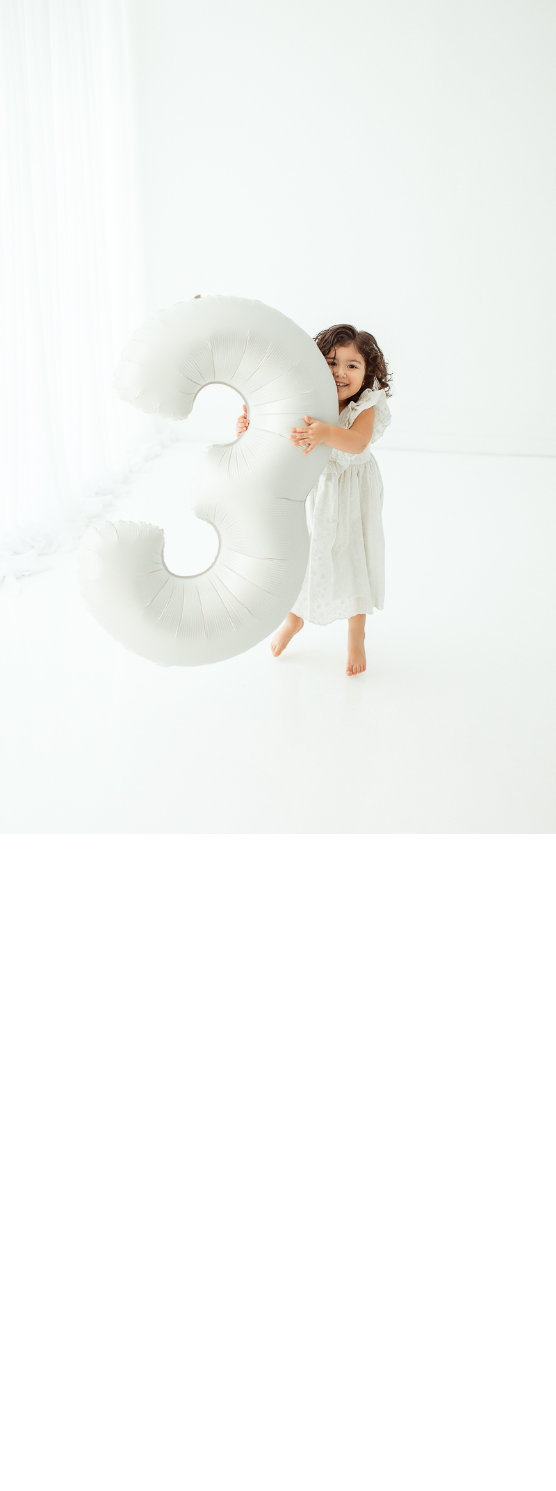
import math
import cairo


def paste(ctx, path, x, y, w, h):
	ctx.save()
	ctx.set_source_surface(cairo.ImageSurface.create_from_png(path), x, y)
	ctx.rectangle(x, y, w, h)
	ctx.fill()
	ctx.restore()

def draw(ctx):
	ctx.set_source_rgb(1, 1, 1)
	ctx.paint()
	paste(ctx, 'media/1.png', 0, 0, 556, 834)


surface = cairo.ImageSurface(cairo.FORMAT_RGB24, 556, 1491)
ctx = cairo.Context(surface)
options = cairo.FontOptions()
options.set_hint_metrics(cairo.HINT_METRICS_OFF)
options.set_hint_style(cairo.HINT_STYLE_NONE)
ctx.set_font_options(options)
ctx.set_miter_limit(4)
draw(ctx)
surface.write_to_png('image.png')
